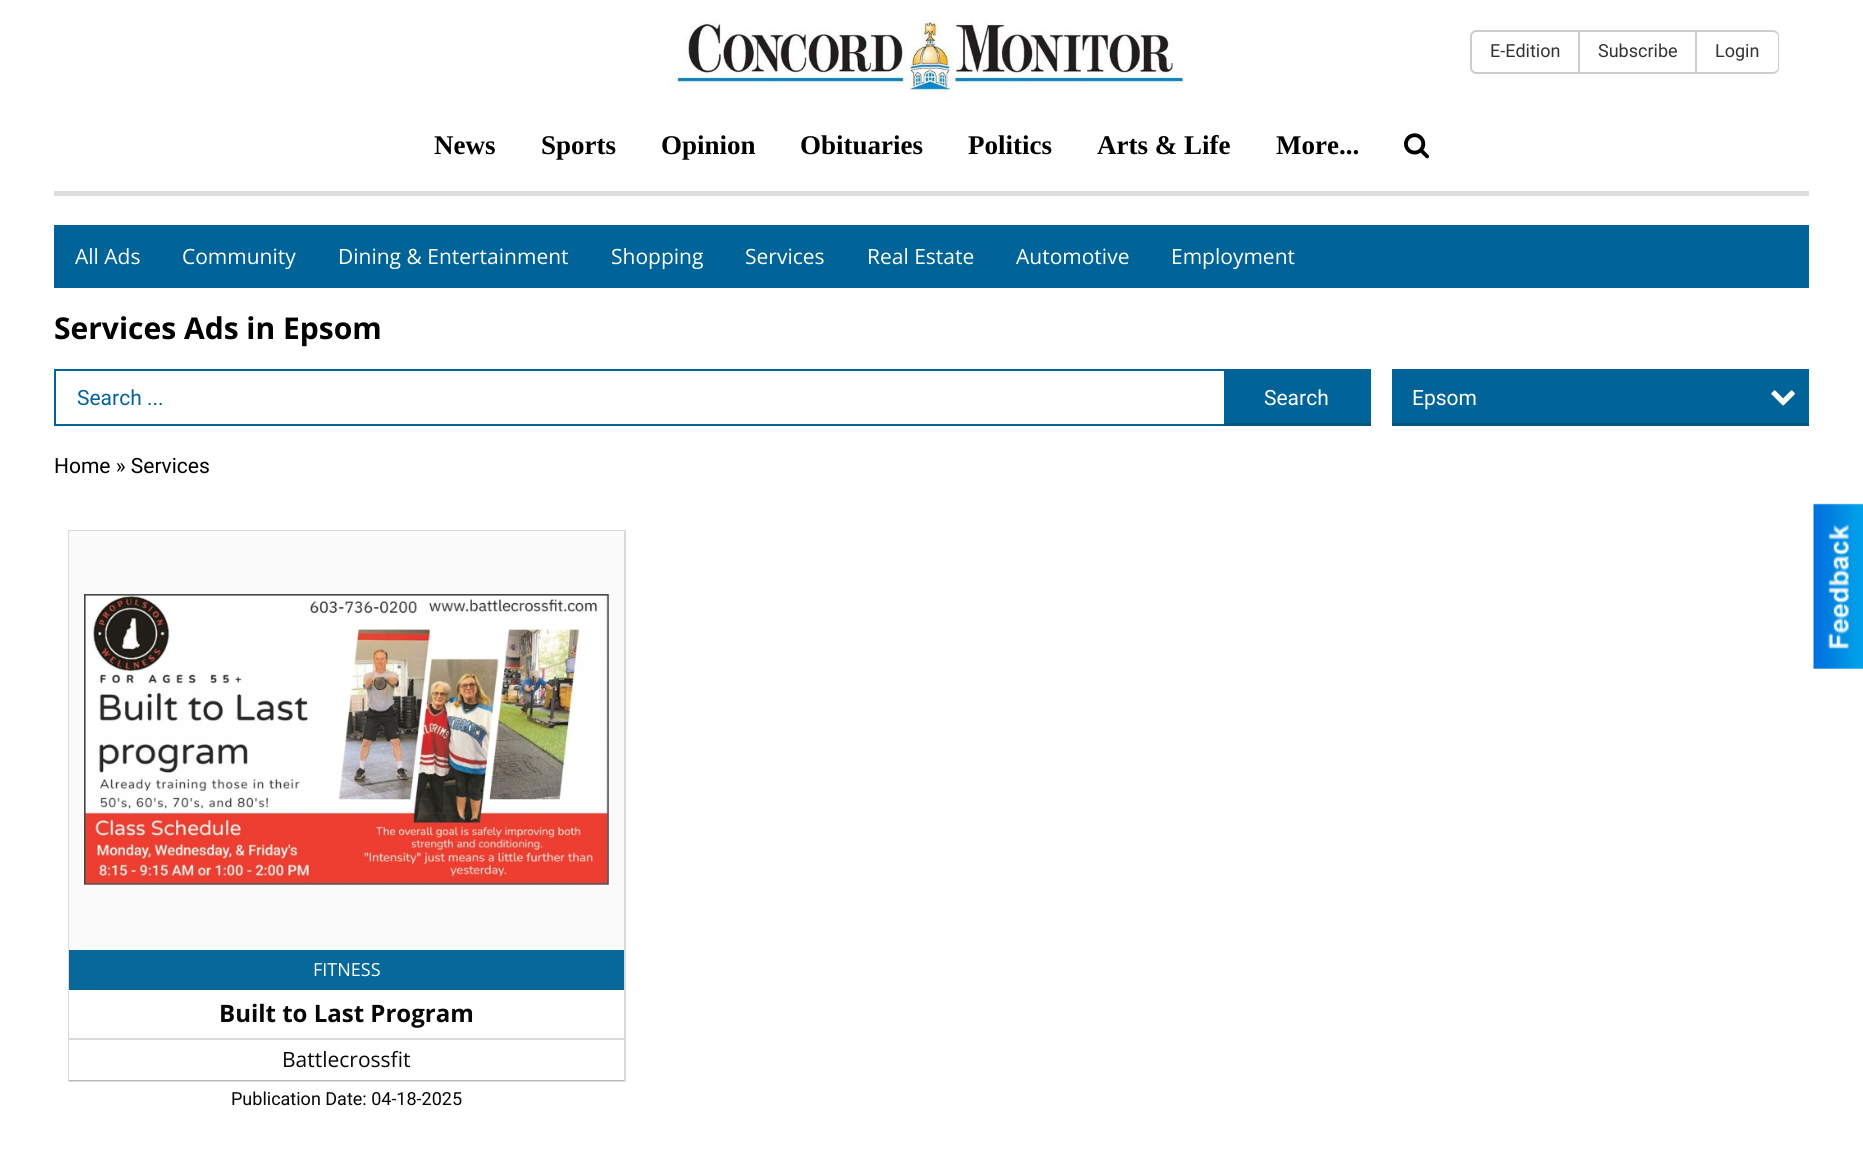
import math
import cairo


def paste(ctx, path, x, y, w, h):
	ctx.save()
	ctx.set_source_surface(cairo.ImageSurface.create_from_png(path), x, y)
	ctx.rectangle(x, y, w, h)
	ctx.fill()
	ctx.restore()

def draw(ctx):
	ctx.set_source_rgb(1, 1, 1)
	ctx.paint()
	ctx.set_source_rgb(0.871, 0.871, 0.871)
	ctx.rectangle(54, 191, 1755, 5)
	ctx.fill()
	paste(ctx, 'media/1.png', 669, 15, 516, 84)
	ctx.set_source_rgb(0.8, 0.8, 0.8)
	ctx.set_fill_rule(cairo.FILL_RULE_EVEN_ODD)
	ctx.new_path()
	ctx.move_to(1476, 30)
	ctx.line_to(1578, 30)
	ctx.line_to(1578, 74)
	ctx.line_to(1476, 74)
	ctx.curve_to(1473, 74, 1470, 71, 1470, 68)
	ctx.line_to(1470, 36)
	ctx.curve_to(1470, 33, 1473, 30, 1476, 30)
	ctx.close_path()
	ctx.move_to(1476, 32)
	ctx.line_to(1578, 32)
	ctx.line_to(1578, 72)
	ctx.line_to(1476, 72)
	ctx.curve_to(1474, 72, 1472, 70, 1472, 68)
	ctx.line_to(1472, 36)
	ctx.curve_to(1472, 34, 1474, 32, 1476, 32)
	ctx.close_path()
	ctx.fill()
	ctx.select_font_face('Roboto')
	ctx.set_font_size(18)
	ctx.set_source_rgb(0.2, 0.2, 0.2)
	ctx.move_to(1490, 57)
	ctx.show_text('E-Edition')
	ctx.rectangle(1579, 31, 117, 42)
	ctx.set_source_rgb(0.8, 0.8, 0.8)
	ctx.stroke()
	ctx.set_source_rgb(0.2, 0.2, 0.2)
	ctx.move_to(1598, 57)
	ctx.show_text('Subscribe')
	ctx.set_source_rgb(0.8, 0.8, 0.8)
	ctx.new_path()
	ctx.move_to(1696, 30)
	ctx.line_to(1773, 30)
	ctx.curve_to(1776, 30, 1779, 33, 1779, 36)
	ctx.line_to(1779, 68)
	ctx.curve_to(1779, 71, 1776, 74, 1773, 74)
	ctx.line_to(1696, 74)
	ctx.close_path()
	ctx.move_to(1696, 32)
	ctx.line_to(1773, 32)
	ctx.curve_to(1775, 32, 1778, 34, 1778, 36)
	ctx.line_to(1778, 68)
	ctx.curve_to(1778, 70, 1775, 72, 1773, 72)
	ctx.line_to(1696, 72)
	ctx.close_path()
	ctx.fill()
	ctx.set_source_rgb(0.2, 0.2, 0.2)
	ctx.move_to(1715, 57)
	ctx.show_text('Login')
	ctx.select_font_face('Liberation Serif', cairo.FONT_SLANT_NORMAL, cairo.FONT_WEIGHT_BOLD)
	ctx.set_font_size(27)
	ctx.set_source_rgb(0, 0, 0)
	for x, y, s in [
		(434, 154, 'News'),
		(541, 154, 'Sports'),
		(661, 154, 'Opinion'),
		(800, 154, 'Obituaries'),
		(968, 154, 'Politics'),
		(1097, 154, 'Arts & Life'),
		(1276, 154, 'More...'),
	]:
		ctx.move_to(x, y)
		ctx.show_text(s)
	paste(ctx, 'media/2.png', 1404, 133, 26, 26)
	ctx.set_source_rgb(0, 0.392, 0.596)
	ctx.rectangle(54, 225, 1755, 63)
	ctx.fill()
	ctx.select_font_face('Open Sans')
	ctx.set_font_size(21)
	ctx.set_source_rgb(1, 1, 1)
	for x, y, s in [
		(75, 264, 'All Ads'),
		(182, 264, 'Community'),
		(338, 264, 'Dining & Entertainment'),
		(611, 264, 'Shopping'),
		(745, 264, 'Services'),
		(867, 264, 'Real Estate'),
		(1016, 264, 'Automotive'),
		(1171, 264, 'Employment'),
	]:
		ctx.move_to(x, y)
		ctx.show_text(s)
	ctx.select_font_face('Open Sans', cairo.FONT_SLANT_NORMAL, cairo.FONT_WEIGHT_BOLD)
	ctx.set_font_size(30)
	ctx.set_source_rgb(0, 0, 0)
	ctx.move_to(54, 339)
	ctx.show_text('Services Ads in Epsom')
	ctx.rectangle(55, 370, 1315, 55)
	ctx.set_source_rgb(0, 0.392, 0.596)
	ctx.stroke()
	ctx.select_font_face('Roboto')
	ctx.set_font_size(21)
	ctx.move_to(77, 405)
	ctx.show_text('Search ...')
	ctx.rectangle(1224, 371, 145, 52)
	ctx.fill()
	ctx.set_source_rgb(0, 0.333, 0.506)
	ctx.rectangle(1224, 423, 147, 3)
	ctx.fill()
	ctx.set_source_rgb(1, 1, 1)
	ctx.move_to(1264, 405)
	ctx.show_text('Search')
	ctx.set_source_rgb(0, 0.392, 0.596)
	ctx.rectangle(1392, 369, 417, 54)
	ctx.fill()
	ctx.set_source_rgb(0, 0.333, 0.506)
	ctx.rectangle(1392, 423, 417, 3)
	ctx.fill()
	ctx.set_source_rgb(1, 1, 1)
	ctx.move_to(1412, 405)
	ctx.show_text('Epsom')
	paste(ctx, 'media/3.png', 1771, 390, 24, 16)
	ctx.set_source_rgb(0, 0, 0)
	ctx.move_to(54, 473)
	ctx.show_text('Home » Services')
	ctx.rectangle(69, 531, 556, 550)
	ctx.set_source_rgb(0.855, 0.855, 0.855)
	ctx.stroke()
	ctx.set_source_rgba(0.031, 0.031, 0.031, 0.15)
	ctx.rectangle(69, 1080, 555, 1)
	ctx.fill()
	ctx.set_source_rgb(0.98, 0.98, 0.98)
	ctx.rectangle(69, 531, 555, 419)
	ctx.fill()
	paste(ctx, 'media/4.png', 84, 594, 525, 291)
	ctx.set_source_rgb(1, 1, 1)
	ctx.rectangle(69, 990, 1, 48)
	ctx.fill()
	ctx.set_source_rgb(0.031, 0.412, 0.608)
	ctx.rectangle(69, 950, 555, 40)
	ctx.fill()
	ctx.select_font_face('Open Sans')
	ctx.set_font_size(18)
	ctx.set_source_rgb(1, 1, 1)
	ctx.move_to(313, 976)
	ctx.show_text('FITNESS')
	ctx.set_source_rgb(0.855, 0.855, 0.855)
	ctx.rectangle(69, 1038, 555, 2)
	ctx.fill()
	ctx.select_font_face('Open Sans', cairo.FONT_SLANT_NORMAL, cairo.FONT_WEIGHT_BOLD)
	ctx.set_font_size(24)
	ctx.set_source_rgb(0.031, 0.031, 0.031)
	ctx.move_to(219, 1022)
	ctx.show_text('Built to Last Program')
	ctx.set_source_rgb(1, 1, 1)
	ctx.rectangle(69, 1040, 1, 40)
	ctx.fill()
	ctx.select_font_face('Open Sans')
	ctx.set_font_size(21)
	ctx.set_source_rgb(0.031, 0.031, 0.031)
	ctx.move_to(282, 1067)
	ctx.show_text('Battlecrossfit')
	ctx.select_font_face('Roboto')
	ctx.set_font_size(18)
	ctx.move_to(231, 1105)
	ctx.show_text('Publication Date: 04-18-2025')
	paste(ctx, 'media/5.png', 1813, 503, 50, 166)


surface = cairo.ImageSurface(cairo.FORMAT_RGB24, 1863, 1171)
ctx = cairo.Context(surface)
options = cairo.FontOptions()
options.set_hint_metrics(cairo.HINT_METRICS_OFF)
options.set_hint_style(cairo.HINT_STYLE_NONE)
ctx.set_font_options(options)
ctx.set_miter_limit(4)
draw(ctx)
surface.write_to_png('image.png')
